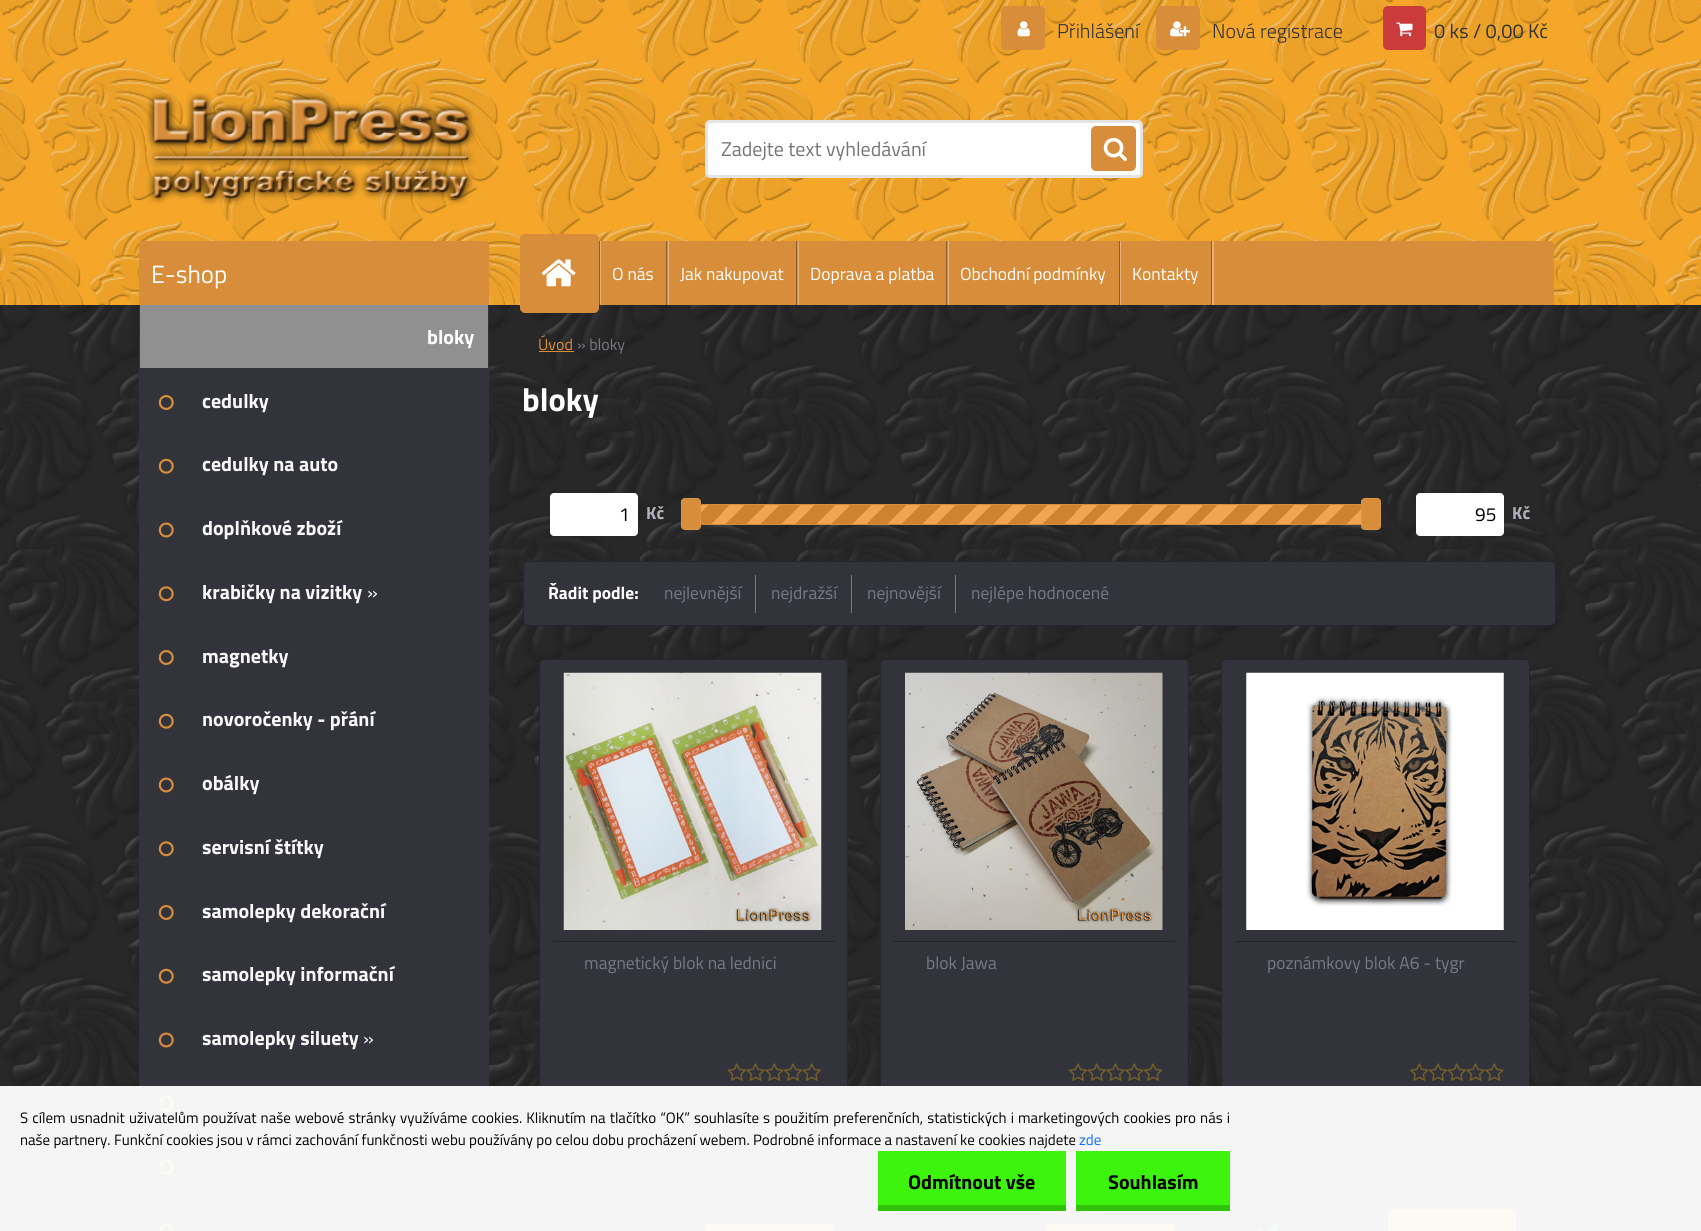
import math
import cairo


def write_spaced(ctx, x, y, s, letter, word):
	ctx.move_to(x, y)
	for ch in s:
		ctx.show_text(ch)
		ctx.rel_move_to(letter + word * (ch == ' '), 0)

def round_path(ctx, x, y, w, h, r):
	ctx.new_sub_path()
	for i, (u, v) in enumerate([(x + w - r, y + h - r), (x + r, y + h - r), (x + r, y + r), (x + w - r, y + r)]):
		ctx.arc(u, v, r, i * math.pi / 2, (i + 1) * math.pi / 2)
	ctx.close_path()

def paste(ctx, path, x, y, w, h):
	ctx.save()
	ctx.set_source_surface(cairo.ImageSurface.create_from_png(path), x, y)
	ctx.rectangle(x, y, w, h)
	ctx.fill()
	ctx.restore()

def draw(ctx):
	ctx.set_source_rgb(1, 1, 1)
	ctx.paint()
	paste(ctx, 'media/1.png', 0, 305, 1701, 926)
	paste(ctx, 'media/21.png', 0, 0, 1701, 305)
	ctx.set_source_rgb(0.843, 0.553, 0.227)
	round_path(ctx, 1001, 6, 44, 44, 5)
	ctx.fill()
	paste(ctx, 'media/2.png', 1017, 21, 13, 16)
	ctx.select_font_face('Titillium Web Light')
	ctx.set_font_size(20)
	ctx.set_source_rgb(0.196, 0.2, 0.231)
	ctx.move_to(1057, 38)
	ctx.show_text('Přihlášení')
	ctx.set_source_rgb(0.843, 0.553, 0.227)
	round_path(ctx, 1156, 6, 44, 44, 5)
	ctx.fill()
	paste(ctx, 'media/3.png', 1170, 21, 20, 16)
	ctx.set_source_rgb(0.196, 0.2, 0.231)
	ctx.move_to(1212, 38)
	ctx.show_text('Nová registrace')
	ctx.set_source_rgb(0.796, 0.231, 0.231)
	round_path(ctx, 1383, 6, 43, 44, 5)
	ctx.fill()
	paste(ctx, 'media/4.png', 1396, 22, 17, 15)
	ctx.select_font_face('Titillium Web')
	ctx.set_source_rgb(0.196, 0.2, 0.231)
	ctx.move_to(1434, 38)
	ctx.show_text('0 ks / 0,00 Kč')
	ctx.set_source_rgb(0.843, 0.553, 0.227)
	ctx.new_path()
	ctx.move_to(143, 241)
	ctx.line_to(485, 241)
	ctx.curve_to(487, 241, 489, 243, 489, 245)
	ctx.line_to(489, 305)
	ctx.line_to(139, 305)
	ctx.line_to(139, 245)
	ctx.curve_to(139, 243, 141, 241, 143, 241)
	ctx.close_path()
	ctx.fill()
	ctx.set_font_size(25)
	ctx.set_source_rgb(1, 1, 1)
	ctx.move_to(151, 283)
	ctx.show_text('E-shop')
	ctx.set_source_rgb(0.565, 0.565, 0.565)
	ctx.rectangle(140, 305, 348, 63)
	ctx.fill()
	ctx.set_source_rgb(0.196, 0.2, 0.231)
	ctx.rectangle(488, 305, 1, 64)
	ctx.rectangle(139, 368, 350, 863)
	ctx.rectangle(139, 305, 1, 64)
	ctx.fill()
	ctx.select_font_face('Titillium Web', cairo.FONT_SLANT_NORMAL, cairo.FONT_WEIGHT_BOLD)
	ctx.set_font_size(20)
	ctx.set_source_rgb(1, 1, 1)
	ctx.move_to(427, 344)
	ctx.show_text('bloky')
	paste(ctx, 'media/5.png', 158, 395, 16, 15)
	ctx.set_source_rgb(0.969, 0.969, 0.969)
	ctx.move_to(202, 408)
	ctx.show_text('cedulky')
	paste(ctx, 'media/6.png', 158, 458, 16, 16)
	ctx.move_to(202, 471)
	ctx.show_text('cedulky na auto')
	paste(ctx, 'media/7.png', 158, 522, 16, 16)
	ctx.move_to(202, 535)
	ctx.show_text('doplňkové zboží')
	paste(ctx, 'media/8.png', 158, 586, 16, 16)
	ctx.move_to(202, 599)
	ctx.show_text('krabičky na vizitky')
	ctx.select_font_face('Titillium Web')
	ctx.move_to(367, 599)
	ctx.show_text('»')
	paste(ctx, 'media/5.png', 158, 650, 16, 15)
	ctx.select_font_face('Titillium Web', cairo.FONT_SLANT_NORMAL, cairo.FONT_WEIGHT_BOLD)
	ctx.move_to(202, 663)
	ctx.show_text('magnetky')
	paste(ctx, 'media/6.png', 158, 713, 16, 16)
	ctx.move_to(202, 726)
	ctx.show_text('novoročenky - přání')
	paste(ctx, 'media/7.png', 158, 777, 16, 16)
	ctx.move_to(202, 790)
	ctx.show_text('obálky')
	paste(ctx, 'media/8.png', 158, 841, 16, 16)
	ctx.move_to(202, 854)
	ctx.show_text('servisní štítky')
	paste(ctx, 'media/5.png', 158, 905, 16, 15)
	ctx.move_to(202, 918)
	ctx.show_text('samolepky dekorační')
	paste(ctx, 'media/6.png', 158, 968, 16, 16)
	ctx.move_to(202, 981)
	ctx.show_text('samolepky informační')
	paste(ctx, 'media/7.png', 158, 1032, 16, 16)
	ctx.move_to(202, 1045)
	ctx.show_text('samolepky siluety')
	ctx.select_font_face('Titillium Web')
	ctx.move_to(363, 1045)
	ctx.show_text('»')
	paste(ctx, 'media/8.png', 158, 1096, 16, 16)
	paste(ctx, 'media/5.png', 158, 1160, 16, 15)
	paste(ctx, 'media/9.png', 158, 1223, 16, 8)
	ctx.set_font_size(16)
	ctx.set_source_rgb(0.843, 0.553, 0.227)
	ctx.move_to(538, 350)
	ctx.show_text('Úvod')
	ctx.rectangle(539, 351, 35, 1)
	ctx.fill()
	ctx.set_source_rgb(0.475, 0.475, 0.525)
	ctx.move_to(577, 350)
	ctx.show_text('» bloky')
	ctx.select_font_face('Titillium Web', cairo.FONT_SLANT_NORMAL, cairo.FONT_WEIGHT_BOLD)
	ctx.set_font_size(32.5)
	ctx.set_source_rgb(1, 1, 1)
	ctx.move_to(522, 411)
	ctx.show_text('bloky')
	round_path(ctx, 550, 493, 88, 43, 4)
	ctx.fill()
	ctx.select_font_face('Titillium Web')
	ctx.set_font_size(19)
	ctx.set_source_rgb(0, 0, 0)
	ctx.move_to(619, 521)
	ctx.show_text('1')
	ctx.select_font_face('Titillium Web', cairo.FONT_SLANT_NORMAL, cairo.FONT_WEIGHT_BOLD)
	ctx.set_font_size(17.5)
	ctx.set_source_rgb(0.698, 0.698, 0.729)
	ctx.move_to(646, 519)
	ctx.show_text('Kč')
	round_path(ctx, 700.5, 504.5, 662, 20, 2)
	ctx.set_source_rgb(0.059, 0.063, 0.094)
	ctx.set_line_width(1)
	ctx.stroke()
	gradient = cairo.LinearGradient(1201, 684, 847, 331)
	gradient.add_color_stop_rgba(0, 0.937, 0.647, 0.322, 1)
	gradient.add_color_stop_rgba(0.02, 0.937, 0.647, 0.322, 1)
	gradient.add_color_stop_rgba(0.02, 0.804, 0.514, 0.188, 1)
	gradient.add_color_stop_rgba(0.05, 0.804, 0.514, 0.188, 1)
	gradient.add_color_stop_rgba(0.05, 0.937, 0.647, 0.322, 1)
	gradient.add_color_stop_rgba(0.07, 0.937, 0.647, 0.322, 1)
	gradient.add_color_stop_rgba(0.07, 0.804, 0.514, 0.188, 1)
	gradient.add_color_stop_rgba(0.1, 0.804, 0.514, 0.188, 1)
	gradient.add_color_stop_rgba(0.1, 0.937, 0.647, 0.322, 1)
	gradient.add_color_stop_rgba(0.12, 0.937, 0.647, 0.322, 1)
	gradient.add_color_stop_rgba(0.12, 0.804, 0.514, 0.188, 1)
	gradient.add_color_stop_rgba(0.15, 0.804, 0.514, 0.188, 1)
	gradient.add_color_stop_rgba(0.15, 0.937, 0.647, 0.322, 1)
	gradient.add_color_stop_rgba(0.17, 0.937, 0.647, 0.322, 1)
	gradient.add_color_stop_rgba(0.17, 0.804, 0.514, 0.188, 1)
	gradient.add_color_stop_rgba(0.2, 0.804, 0.514, 0.188, 1)
	gradient.add_color_stop_rgba(0.2, 0.937, 0.647, 0.322, 1)
	gradient.add_color_stop_rgba(0.23, 0.937, 0.647, 0.322, 1)
	gradient.add_color_stop_rgba(0.23, 0.804, 0.514, 0.188, 1)
	gradient.add_color_stop_rgba(0.25, 0.804, 0.514, 0.188, 1)
	gradient.add_color_stop_rgba(0.25, 0.937, 0.647, 0.322, 1)
	gradient.add_color_stop_rgba(0.28, 0.937, 0.647, 0.322, 1)
	gradient.add_color_stop_rgba(0.28, 0.804, 0.514, 0.188, 1)
	gradient.add_color_stop_rgba(0.3, 0.804, 0.514, 0.188, 1)
	gradient.add_color_stop_rgba(0.3, 0.937, 0.647, 0.322, 1)
	gradient.add_color_stop_rgba(0.32, 0.937, 0.647, 0.322, 1)
	gradient.add_color_stop_rgba(0.32, 0.804, 0.514, 0.188, 1)
	gradient.add_color_stop_rgba(0.35, 0.804, 0.514, 0.188, 1)
	gradient.add_color_stop_rgba(0.35, 0.937, 0.647, 0.322, 1)
	gradient.add_color_stop_rgba(0.38, 0.937, 0.647, 0.322, 1)
	gradient.add_color_stop_rgba(0.38, 0.804, 0.514, 0.188, 1)
	gradient.add_color_stop_rgba(0.4, 0.804, 0.514, 0.188, 1)
	gradient.add_color_stop_rgba(0.4, 0.937, 0.647, 0.322, 1)
	gradient.add_color_stop_rgba(0.42, 0.937, 0.647, 0.322, 1)
	gradient.add_color_stop_rgba(0.42, 0.804, 0.514, 0.188, 1)
	gradient.add_color_stop_rgba(0.45, 0.804, 0.514, 0.188, 1)
	gradient.add_color_stop_rgba(0.45, 0.937, 0.647, 0.322, 1)
	gradient.add_color_stop_rgba(0.47, 0.937, 0.647, 0.322, 1)
	gradient.add_color_stop_rgba(0.47, 0.804, 0.514, 0.188, 1)
	gradient.add_color_stop_rgba(0.5, 0.804, 0.514, 0.188, 1)
	gradient.add_color_stop_rgba(0.5, 0.937, 0.647, 0.322, 1)
	gradient.add_color_stop_rgba(0.52, 0.937, 0.647, 0.322, 1)
	gradient.add_color_stop_rgba(0.52, 0.804, 0.514, 0.188, 1)
	gradient.add_color_stop_rgba(0.55, 0.804, 0.514, 0.188, 1)
	gradient.add_color_stop_rgba(0.55, 0.937, 0.647, 0.322, 1)
	gradient.add_color_stop_rgba(0.57, 0.937, 0.647, 0.322, 1)
	gradient.add_color_stop_rgba(0.57, 0.804, 0.514, 0.188, 1)
	gradient.add_color_stop_rgba(0.6, 0.804, 0.514, 0.188, 1)
	gradient.add_color_stop_rgba(0.6, 0.937, 0.647, 0.322, 1)
	gradient.add_color_stop_rgba(0.62, 0.937, 0.647, 0.322, 1)
	gradient.add_color_stop_rgba(0.62, 0.804, 0.514, 0.188, 1)
	gradient.add_color_stop_rgba(0.65, 0.804, 0.514, 0.188, 1)
	gradient.add_color_stop_rgba(0.65, 0.937, 0.647, 0.322, 1)
	gradient.add_color_stop_rgba(0.67, 0.937, 0.647, 0.322, 1)
	gradient.add_color_stop_rgba(0.67, 0.804, 0.514, 0.188, 1)
	gradient.add_color_stop_rgba(0.7, 0.804, 0.514, 0.188, 1)
	gradient.add_color_stop_rgba(0.7, 0.937, 0.647, 0.322, 1)
	gradient.add_color_stop_rgba(0.72, 0.937, 0.647, 0.322, 1)
	gradient.add_color_stop_rgba(0.72, 0.804, 0.514, 0.188, 1)
	gradient.add_color_stop_rgba(0.75, 0.804, 0.514, 0.188, 1)
	gradient.add_color_stop_rgba(0.75, 0.937, 0.647, 0.322, 1)
	gradient.add_color_stop_rgba(0.77, 0.937, 0.647, 0.322, 1)
	gradient.add_color_stop_rgba(0.77, 0.804, 0.514, 0.188, 1)
	gradient.add_color_stop_rgba(0.8, 0.804, 0.514, 0.188, 1)
	gradient.add_color_stop_rgba(0.8, 0.937, 0.647, 0.322, 1)
	gradient.add_color_stop_rgba(0.82, 0.937, 0.647, 0.322, 1)
	gradient.add_color_stop_rgba(0.82, 0.804, 0.514, 0.188, 1)
	gradient.add_color_stop_rgba(0.85, 0.804, 0.514, 0.188, 1)
	gradient.add_color_stop_rgba(0.85, 0.937, 0.647, 0.322, 1)
	gradient.add_color_stop_rgba(0.87, 0.937, 0.647, 0.322, 1)
	gradient.add_color_stop_rgba(0.87, 0.804, 0.514, 0.188, 1)
	gradient.add_color_stop_rgba(0.9, 0.804, 0.514, 0.188, 1)
	gradient.add_color_stop_rgba(0.9, 0.937, 0.647, 0.322, 1)
	gradient.add_color_stop_rgba(0.92, 0.937, 0.647, 0.322, 1)
	gradient.add_color_stop_rgba(0.92, 0.804, 0.514, 0.188, 1)
	gradient.add_color_stop_rgba(0.95, 0.804, 0.514, 0.188, 1)
	gradient.add_color_stop_rgba(0.95, 0.937, 0.647, 0.322, 1)
	gradient.add_color_stop_rgba(0.97, 0.937, 0.647, 0.322, 1)
	gradient.add_color_stop_rgba(0.97, 0.804, 0.514, 0.188, 1)
	gradient.add_color_stop_rgba(1, 0.804, 0.514, 0.188, 1)
	ctx.set_source(gradient)
	ctx.rectangle(701, 505, 660, 19)
	ctx.fill()
	round_path(ctx, 700.5, 504.5, 662, 20, 2)
	ctx.set_source_rgb(0.843, 0.553, 0.227)
	ctx.stroke()
	round_path(ctx, 681, 498, 20, 32, 4)
	ctx.fill()
	round_path(ctx, 681.5, 498.5, 19, 31, 3.5)
	ctx.set_source_rgba(1, 1, 1, 0.07)
	ctx.stroke()
	ctx.set_source_rgb(0.843, 0.553, 0.227)
	round_path(ctx, 1361, 498, 20, 32, 4)
	ctx.fill()
	round_path(ctx, 1361.5, 498.5, 19, 31, 3.5)
	ctx.set_source_rgba(1, 1, 1, 0.07)
	ctx.stroke()
	ctx.set_source_rgb(1, 1, 1)
	round_path(ctx, 1416, 493, 88, 43, 4)
	ctx.fill()
	ctx.select_font_face('Titillium Web')
	ctx.set_font_size(19)
	ctx.set_source_rgb(0, 0, 0)
	ctx.move_to(1475, 521)
	ctx.show_text('95')
	ctx.select_font_face('Titillium Web', cairo.FONT_SLANT_NORMAL, cairo.FONT_WEIGHT_BOLD)
	ctx.set_font_size(17.5)
	ctx.set_source_rgb(0.698, 0.698, 0.729)
	ctx.move_to(1512, 519)
	ctx.show_text('Kč')
	ctx.set_source_rgb(0.196, 0.2, 0.231)
	round_path(ctx, 523.5, 561.5, 1032, 64, 4.5)
	ctx.fill_preserve()
	ctx.set_source_rgb(0.141, 0.145, 0.176)
	ctx.stroke()
	ctx.set_source_rgb(1, 1, 1)
	ctx.move_to(548, 599)
	ctx.show_text('Řadit podle:')
	ctx.set_source_rgb(0.475, 0.475, 0.525)
	ctx.rectangle(755, 575, 1, 38)
	ctx.fill()
	ctx.select_font_face('Titillium Web')
	ctx.move_to(664, 599)
	ctx.show_text('nejlevnější')
	ctx.rectangle(851, 575, 1, 38)
	ctx.fill()
	ctx.move_to(771, 599)
	ctx.show_text('nejdražší')
	ctx.rectangle(955, 575, 1, 38)
	ctx.fill()
	ctx.move_to(867, 599)
	ctx.show_text('nejnovější')
	ctx.move_to(971, 599)
	ctx.show_text('nejlépe hodnocené')
	ctx.set_source_rgb(0.196, 0.2, 0.231)
	round_path(ctx, 539.5, 659.5, 308, 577, 4.5)
	ctx.fill_preserve()
	ctx.set_source_rgb(0.141, 0.145, 0.176)
	ctx.stroke()
	ctx.set_source_rgb(0.133, 0.137, 0.169)
	ctx.rectangle(553, 941, 281, 1)
	ctx.fill()
	paste(ctx, 'media/10.png', 563, 672, 259, 258)
	ctx.set_source_rgb(0.475, 0.475, 0.525)
	ctx.move_to(584, 969)
	ctx.show_text('magnetický blok na lednici')
	paste(ctx, 'media/11.png', 727, 1063, 19, 18)
	paste(ctx, 'media/12.png', 746, 1063, 19, 18)
	paste(ctx, 'media/13.png', 765, 1063, 19, 18)
	paste(ctx, 'media/14.png', 783, 1063, 20, 18)
	paste(ctx, 'media/15.png', 802, 1063, 19, 18)
	ctx.set_source_rgb(0.843, 0.553, 0.227)
	round_path(ctx, 705, 1224, 129, 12, 5)
	ctx.fill()
	ctx.set_source_rgb(0.196, 0.2, 0.231)
	round_path(ctx, 880.5, 659.5, 308, 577, 4.5)
	ctx.fill_preserve()
	ctx.set_source_rgb(0.141, 0.145, 0.176)
	ctx.stroke()
	ctx.set_source_rgb(0.133, 0.137, 0.169)
	ctx.rectangle(894, 941, 281, 1)
	ctx.fill()
	paste(ctx, 'media/16.png', 905, 672, 258, 258)
	ctx.set_source_rgb(0.475, 0.475, 0.525)
	ctx.move_to(926, 969)
	ctx.show_text('blok Jawa')
	paste(ctx, 'media/17.png', 1068, 1063, 20, 18)
	paste(ctx, 'media/15.png', 1087, 1063, 19, 18)
	paste(ctx, 'media/12.png', 1106, 1063, 19, 18)
	paste(ctx, 'media/13.png', 1125, 1063, 19, 18)
	paste(ctx, 'media/14.png', 1143, 1063, 20, 18)
	ctx.set_source_rgb(0.843, 0.553, 0.227)
	round_path(ctx, 1046, 1224, 129, 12, 5)
	ctx.fill()
	ctx.set_source_rgb(0.196, 0.2, 0.231)
	round_path(ctx, 1221.5, 659.5, 308, 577, 4.5)
	ctx.fill_preserve()
	ctx.set_source_rgb(0.141, 0.145, 0.176)
	ctx.stroke()
	ctx.set_source_rgb(0.133, 0.137, 0.169)
	ctx.rectangle(1235, 941, 281, 1)
	ctx.fill()
	paste(ctx, 'media/18.png', 1246, 672, 258, 258)
	ctx.set_source_rgb(0.475, 0.475, 0.525)
	ctx.move_to(1267, 969)
	ctx.show_text('poznámkovy blok A6 - tygr')
	paste(ctx, 'media/13.png', 1410, 1063, 19, 18)
	paste(ctx, 'media/14.png', 1428, 1063, 20, 18)
	paste(ctx, 'media/15.png', 1447, 1063, 19, 18)
	paste(ctx, 'media/12.png', 1466, 1063, 19, 18)
	paste(ctx, 'media/13.png', 1485, 1063, 19, 18)
	paste(ctx, 'media/19.png', 1257, 1223, 23, 8)
	ctx.set_source_rgb(0.843, 0.553, 0.227)
	round_path(ctx, 1388, 1209, 128, 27, 5)
	ctx.fill()
	ctx.new_path()
	ctx.move_to(527, 241)
	ctx.line_to(1550, 241)
	ctx.curve_to(1552, 241, 1554, 243, 1554, 245)
	ctx.line_to(1554, 305)
	ctx.line_to(523, 305)
	ctx.line_to(523, 245)
	ctx.curve_to(523, 243, 525, 241, 527, 241)
	ctx.close_path()
	ctx.fill()
	ctx.set_source_rgb(0.894, 0.702, 0.482)
	ctx.new_path()
	ctx.move_to(543, 241)
	ctx.line_to(600, 241)
	ctx.line_to(600, 305)
	ctx.line_to(601, 305)
	ctx.line_to(601, 241)
	ctx.close_path()
	ctx.fill()
	ctx.set_source_rgb(0.565, 0.369, 0.153)
	ctx.rectangle(599, 241, 1, 64)
	ctx.fill()
	ctx.set_source_rgb(0.843, 0.553, 0.227)
	round_path(ctx, 520, 234, 79, 79, 5)
	ctx.fill()
	paste(ctx, 'media/20.png', 541, 259, 35, 28)
	ctx.set_source_rgb(0.894, 0.702, 0.482)
	ctx.new_path()
	ctx.move_to(601, 241)
	ctx.line_to(668, 241)
	ctx.line_to(668, 305)
	ctx.line_to(669, 305)
	ctx.line_to(669, 241)
	ctx.close_path()
	ctx.fill()
	ctx.set_source_rgb(0.565, 0.369, 0.153)
	ctx.rectangle(666, 241, 1, 64)
	ctx.fill()
	ctx.set_source_rgb(1, 1, 1)
	ctx.move_to(612, 280)
	ctx.show_text('O nás')
	ctx.set_source_rgb(0.894, 0.702, 0.482)
	ctx.new_path()
	ctx.move_to(669, 241)
	ctx.line_to(798, 241)
	ctx.line_to(798, 305)
	ctx.line_to(799, 305)
	ctx.line_to(799, 241)
	ctx.close_path()
	ctx.fill()
	ctx.set_source_rgb(0.565, 0.369, 0.153)
	ctx.rectangle(796, 241, 1, 64)
	ctx.fill()
	ctx.set_source_rgb(1, 1, 1)
	ctx.move_to(680, 280)
	ctx.show_text('Jak nakupovat')
	ctx.set_source_rgb(0.894, 0.702, 0.482)
	ctx.new_path()
	ctx.move_to(799, 241)
	ctx.line_to(948, 241)
	ctx.line_to(948, 305)
	ctx.line_to(949, 305)
	ctx.line_to(949, 241)
	ctx.close_path()
	ctx.fill()
	ctx.set_source_rgb(0.565, 0.369, 0.153)
	ctx.rectangle(946, 241, 1, 64)
	ctx.fill()
	ctx.set_source_rgb(1, 1, 1)
	ctx.move_to(810, 280)
	ctx.show_text('Doprava a platba')
	ctx.set_source_rgb(0.894, 0.702, 0.482)
	ctx.new_path()
	ctx.move_to(949, 241)
	ctx.line_to(1120, 241)
	ctx.line_to(1120, 305)
	ctx.line_to(1121, 305)
	ctx.line_to(1121, 241)
	ctx.close_path()
	ctx.fill()
	ctx.set_source_rgb(0.565, 0.369, 0.153)
	ctx.rectangle(1119, 241, 1, 64)
	ctx.fill()
	ctx.set_source_rgb(1, 1, 1)
	ctx.move_to(960, 280)
	ctx.show_text('Obchodní podmínky')
	ctx.set_source_rgb(0.894, 0.702, 0.482)
	ctx.new_path()
	ctx.move_to(1121, 241)
	ctx.line_to(1212, 241)
	ctx.line_to(1212, 305)
	ctx.line_to(1214, 305)
	ctx.line_to(1214, 241)
	ctx.close_path()
	ctx.fill()
	ctx.set_source_rgb(0.565, 0.369, 0.153)
	ctx.rectangle(1211, 241, 1, 64)
	ctx.fill()
	ctx.set_source_rgb(1, 1, 1)
	ctx.move_to(1132, 280)
	ctx.show_text('Kontakty')
	paste(ctx, 'media/22.png', 147, 92, 329, 113)
	round_path(ctx, 706.5, 121.5, 435, 55, 3.5)
	ctx.fill_preserve()
	ctx.set_source_rgb(0.894, 0.894, 0.894)
	ctx.set_line_width(3)
	ctx.stroke()
	ctx.set_font_size(20)
	ctx.set_source_rgb(0.459, 0.459, 0.459)
	ctx.move_to(721, 156)
	ctx.show_text('Zadejte text vyhledávání')
	ctx.set_source_rgb(0.843, 0.553, 0.227)
	round_path(ctx, 1091, 126, 45, 45, 5)
	ctx.fill()
	paste(ctx, 'media/23.png', 1103, 137, 24, 25)
	ctx.set_source_rgba(1, 1, 1, 0.95)
	ctx.rectangle(0, 1086, 1701, 145)
	ctx.fill()
	ctx.set_font_size(15)
	ctx.set_source_rgb(0, 0, 0)
	write_spaced(ctx, 20, 1123, 'S cílem usnadnit uživatelům používat naše webové stránky využíváme cookies. Kliknutím na tlačítko “OK” souhlasíte s použitím preferenčních, statistických i marketingových cookies pro nás i', 0, 0.8)
	ctx.move_to(20, 1145)
	ctx.show_text('naše partnery. Funkční cookies jsou v rámci zachování funkčnosti webu používány po celou dobu procházení webem. Podrobné informace a nastavení ke cookies najdete')
	ctx.set_source_rgb(0.051, 0.431, 0.992)
	ctx.move_to(1079, 1145)
	ctx.show_text('zde')
	ctx.set_source_rgb(0.239, 0.957, 0.047)
	ctx.rectangle(878, 1151, 188, 54)
	ctx.fill()
	ctx.set_source_rgb(0.192, 0.765, 0.039)
	ctx.rectangle(878, 1205, 188, 6)
	ctx.fill()
	ctx.select_font_face('Titillium Web', cairo.FONT_SLANT_NORMAL, cairo.FONT_WEIGHT_BOLD)
	ctx.set_font_size(20)
	ctx.set_source_rgb(0, 0, 0)
	ctx.move_to(908, 1189)
	ctx.show_text('Odmítnout vše')
	ctx.set_source_rgb(0.239, 0.957, 0.047)
	ctx.rectangle(1076, 1151, 154, 54)
	ctx.fill()
	ctx.set_source_rgb(0.192, 0.765, 0.039)
	ctx.rectangle(1076, 1205, 154, 6)
	ctx.fill()
	ctx.set_source_rgb(0, 0, 0)
	ctx.move_to(1108, 1189)
	ctx.show_text('Souhlasím')


surface = cairo.ImageSurface(cairo.FORMAT_RGB24, 1701, 1231)
ctx = cairo.Context(surface)
options = cairo.FontOptions()
options.set_hint_metrics(cairo.HINT_METRICS_OFF)
options.set_hint_style(cairo.HINT_STYLE_NONE)
ctx.set_font_options(options)
ctx.set_miter_limit(4)
draw(ctx)
surface.write_to_png('image.png')
